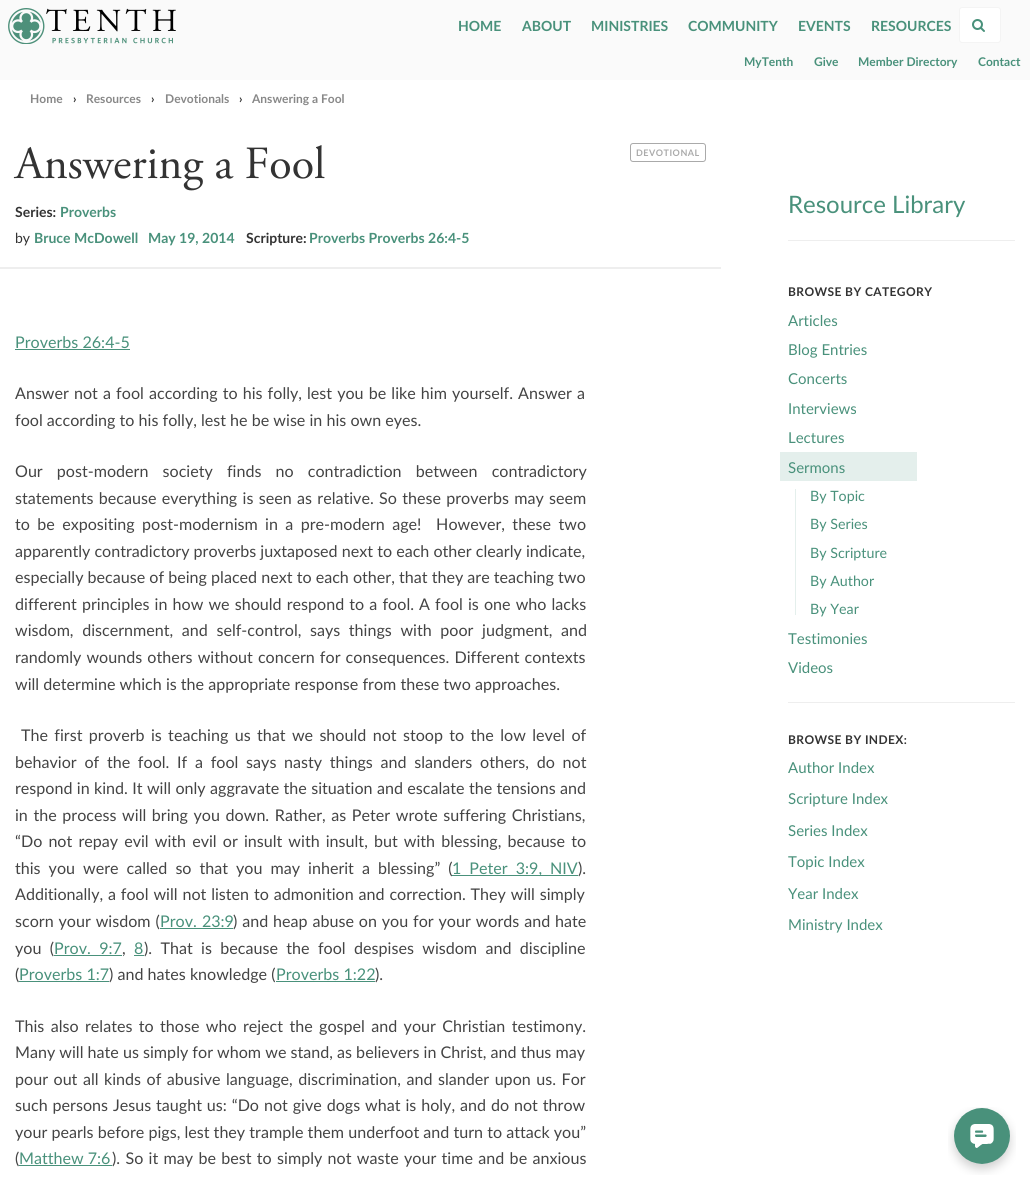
import math
import cairo


def write_spaced(ctx, x, y, s, letter, word):
	ctx.move_to(x, y)
	for ch in s:
		ctx.show_text(ch)
		ctx.rel_move_to(letter + word * (ch == ' '), 0)

def round_path(ctx, x, y, w, h, r):
	ctx.new_sub_path()
	for i, (u, v) in enumerate([(x + w - r, y + h - r), (x + r, y + h - r), (x + r, y + r), (x + w - r, y + r)]):
		ctx.arc(u, v, r, i * math.pi / 2, (i + 1) * math.pi / 2)
	ctx.close_path()

def paste(ctx, path, x, y, w, h):
	ctx.save()
	ctx.set_source_surface(cairo.ImageSurface.create_from_png(path), x, y)
	ctx.rectangle(x, y, w, h)
	ctx.fill()
	ctx.restore()

def draw(ctx):
	ctx.set_source_rgb(1, 1, 1)
	ctx.paint()
	ctx.set_source_rgb(0.98, 0.98, 0.98)
	ctx.rectangle(0, 0, 1030, 80)
	ctx.fill()
	paste(ctx, 'media/1.png', 8, 8, 168, 36)
	ctx.select_font_face('Lato', cairo.FONT_SLANT_NORMAL, cairo.FONT_WEIGHT_BOLD)
	ctx.set_font_size(14)
	ctx.set_source_rgb(0.286, 0.569, 0.482)
	for x, y, s in [
		(458, 31, 'HOME'),
		(522, 31, 'ABOUT'),
		(591, 31, 'MINISTRIES'),
		(688, 31, 'COMMUNITY'),
		(798, 31, 'EVENTS'),
		(871, 31, 'RESOURCES'),
	]:
		ctx.move_to(x, y)
		ctx.show_text(s)
	ctx.set_source_rgb(1, 1, 1)
	round_path(ctx, 960, 8, 40, 34, 2)
	ctx.fill()
	paste(ctx, 'media/2.png', 972, 19, 13, 13)
	round_path(ctx, 959.5, 7.5, 41, 35, 2.5)
	ctx.set_source_rgb(0.957, 0.957, 0.957)
	ctx.set_line_width(1)
	ctx.stroke()
	ctx.set_font_size(12)
	ctx.set_source_rgb(0.286, 0.569, 0.482)
	for x, y, s in [
		(744, 66, 'MyTenth'),
		(814, 66, 'Give'),
		(858, 66, 'Member Directory'),
		(978, 66, 'Contact'),
	]:
		ctx.move_to(x, y)
		ctx.show_text(s)
	ctx.set_source_rgb(0.533, 0.533, 0.533)
	ctx.move_to(30, 103)
	ctx.show_text('Home')
	ctx.set_source_rgb(0.2, 0.2, 0.2)
	ctx.move_to(73, 103)
	ctx.show_text('›')
	ctx.set_source_rgb(0.533, 0.533, 0.533)
	ctx.move_to(86, 103)
	ctx.show_text('Resources')
	ctx.set_source_rgb(0.2, 0.2, 0.2)
	ctx.move_to(151, 103)
	ctx.show_text('›')
	ctx.set_source_rgb(0.533, 0.533, 0.533)
	ctx.move_to(165, 103)
	ctx.show_text('Devotionals')
	ctx.set_source_rgb(0.2, 0.2, 0.2)
	ctx.move_to(239, 103)
	ctx.show_text('›')
	ctx.set_source_rgb(0.533, 0.533, 0.533)
	ctx.move_to(252, 103)
	ctx.show_text('Answering a Fool')
	ctx.set_source_rgb(0.933, 0.933, 0.933)
	ctx.rectangle(0, 267, 721, 2)
	ctx.fill()
	ctx.select_font_face('Adobe Garamond')
	ctx.set_font_size(46)
	ctx.set_source_rgb(0.2, 0.2, 0.2)
	ctx.move_to(15, 178)
	ctx.show_text('Answering a Fool')
	round_path(ctx, 630.5, 143.5, 75, 18, 2.5)
	ctx.set_source_rgb(0.667, 0.667, 0.667)
	ctx.stroke()
	ctx.select_font_face('Lato', cairo.FONT_SLANT_NORMAL, cairo.FONT_WEIGHT_BOLD)
	ctx.set_font_size(9)
	write_spaced(ctx, 636, 156, 'DEVOTIONAL', 0.5, 0)
	ctx.set_font_size(14)
	ctx.set_source_rgb(0.2, 0.2, 0.2)
	ctx.move_to(15, 217)
	ctx.show_text('Series:')
	ctx.set_source_rgb(0.286, 0.569, 0.482)
	ctx.move_to(60, 217)
	ctx.show_text('Proverbs')
	ctx.select_font_face('Lato')
	ctx.set_source_rgb(0.2, 0.2, 0.2)
	ctx.move_to(15, 243)
	ctx.show_text('by')
	ctx.select_font_face('Lato', cairo.FONT_SLANT_NORMAL, cairo.FONT_WEIGHT_BOLD)
	ctx.set_source_rgb(0.286, 0.569, 0.482)
	ctx.move_to(34, 243)
	ctx.show_text('Bruce McDowell')
	ctx.move_to(148, 243)
	ctx.show_text('May 19, 2014')
	ctx.set_source_rgb(0.2, 0.2, 0.2)
	ctx.move_to(246, 243)
	ctx.show_text('Scripture:')
	ctx.set_source_rgb(0.286, 0.569, 0.482)
	ctx.move_to(309, 243)
	ctx.show_text('Proverbs Proverbs 26:4-5')
	ctx.select_font_face('Lato')
	ctx.set_font_size(16.1)
	ctx.move_to(15, 348)
	ctx.show_text('Proverbs 26:4-5')
	ctx.rectangle(15, 349, 115, 1)
	ctx.fill()
	ctx.set_source_rgb(0.267, 0.267, 0.267)
	write_spaced(ctx, 15, 399, 'Answer not a fool according to his folly,', 0, 1)
	write_spaced(ctx, 307, 399, 'lest you be like him yourself. Answer a', 0, 1)
	ctx.move_to(15, 426)
	ctx.show_text('fool according to his folly, lest he be wise in his own eyes.')
	write_spaced(ctx, 15, 477, 'Our post-modern society finds no contradiction between contradictory', 0, 10)
	write_spaced(ctx, 15, 504, 'statements because everything is seen as relative. So these proverbs may seem', 0, 1.2)
	write_spaced(ctx, 15, 530, 'to be expositing post-modernism in a pre-modern age!  However, these two', 0, 3.25)
	ctx.move_to(15, 557)
	ctx.show_text('apparently contradictory proverbs juxtaposed next to each other clearly indicate,')
	ctx.move_to(15, 583)
	ctx.show_text('especially because of being placed next to each other, that they are teaching two')
	write_spaced(ctx, 15, 610, 'different principles in how we should respond to a fool. A fool is one who lacks', 0, 1)
	write_spaced(ctx, 15, 636, 'wisdom, discernment, and self-control, says things with poor judgment, and', 0, 4.5)
	write_spaced(ctx, 15, 663, 'randomly wounds others without concern for consequences. Different contexts', 0, 1)
	ctx.move_to(15, 690)
	ctx.show_text('will determine which is the appropriate response from these two approaches.')
	write_spaced(ctx, 21, 741, 'The first proverb is teaching us that we should not stoop to the low level of', 0, 2.25)
	write_spaced(ctx, 15, 768, 'behavior of the fool. If a fool says nasty things and slanders others, do not', 0, 3.6)
	write_spaced(ctx, 15, 794, 'respond in kind. It will only aggravate the situation and escalate the tensions and', 0, 0.25)
	write_spaced(ctx, 15, 821, 'in the process will bring you down. Rather, as Peter wrote suffering Christians,', 0, 1.5)
	write_spaced(ctx, 15, 847, '“Do not repay evil with evil or insult with insult, but with blessing, because to', 0, 2)
	write_spaced(ctx, 15, 874, 'this you were called so that you may inherit a blessing” (', 0, 3.9)
	ctx.set_source_rgb(0.286, 0.569, 0.482)
	ctx.rectangle(452, 875, 126, 1)
	ctx.fill()
	write_spaced(ctx, 452, 874, '1 Peter 3:9, NIV', 0, 3.9)
	ctx.set_source_rgb(0.267, 0.267, 0.267)
	ctx.move_to(578, 874)
	ctx.show_text(').')
	write_spaced(ctx, 15, 900, 'Additionally, a fool will not listen to admonition and correction. They will simply', 0, 0.75)
	write_spaced(ctx, 15, 927, 'scorn your wisdom (', 0, 0.75)
	ctx.set_source_rgb(0.286, 0.569, 0.482)
	write_spaced(ctx, 160, 927, 'Prov. 23:9', 0, 1)
	ctx.rectangle(160, 928, 73, 1)
	ctx.fill()
	ctx.set_source_rgb(0.267, 0.267, 0.267)
	write_spaced(ctx, 233, 927, ') and heap abuse on you for your words and hate', 0, 0.75)
	write_spaced(ctx, 15, 954, 'you (', 0, 4.25)
	ctx.set_source_rgb(0.286, 0.569, 0.482)
	write_spaced(ctx, 54, 954, 'Prov. 9:7', 0, 4.25)
	ctx.rectangle(54, 955, 68, 1)
	ctx.fill()
	ctx.set_source_rgb(0.267, 0.267, 0.267)
	ctx.move_to(122, 954)
	ctx.show_text(',')
	ctx.set_source_rgb(0.286, 0.569, 0.482)
	ctx.move_to(134, 954)
	ctx.show_text('8')
	ctx.rectangle(134, 955, 10, 1)
	ctx.fill()
	ctx.set_source_rgb(0.267, 0.267, 0.267)
	write_spaced(ctx, 144, 954, '). That is because the fool despises wisdom and discipline', 0, 4.25)
	ctx.move_to(15, 980)
	ctx.show_text('(')
	ctx.set_source_rgb(0.286, 0.569, 0.482)
	ctx.move_to(19, 980)
	ctx.show_text('Proverbs 1:7')
	ctx.rectangle(19, 981, 90, 1)
	ctx.fill()
	ctx.set_source_rgb(0.267, 0.267, 0.267)
	ctx.move_to(109, 980)
	ctx.show_text(') and hates knowledge (')
	ctx.set_source_rgb(0.286, 0.569, 0.482)
	ctx.move_to(276, 980)
	ctx.show_text('Proverbs 1:22')
	ctx.rectangle(276, 981, 99, 1)
	ctx.fill()
	ctx.set_source_rgb(0.267, 0.267, 0.267)
	ctx.move_to(375, 980)
	ctx.show_text(').')
	write_spaced(ctx, 15, 1032, 'This also relates to those who reject the gospel and your Christian testimony.', 0, 2.25)
	ctx.move_to(15, 1058)
	ctx.show_text('Many will hate us simply for whom we stand, as believers in Christ, and thus may')
	write_spaced(ctx, 15, 1085, 'pour out all kinds of abusive language, discrimination, and slander upon us. For', 0, 1.4)
	write_spaced(ctx, 15, 1111, 'such persons Jesus taught us: “Do not give dogs what is holy, and do not throw', 0, 0.8)
	ctx.move_to(15, 1138)
	ctx.show_text('your pearls before pigs, lest they trample them underfoot and turn to attack you”')
	ctx.move_to(15, 1164)
	ctx.show_text('(')
	ctx.set_source_rgb(0.286, 0.569, 0.482)
	ctx.move_to(19, 1164)
	ctx.show_text('Matthew 7:6')
	ctx.rectangle(19, 1165, 93, 1)
	ctx.fill()
	ctx.set_source_rgb(0.267, 0.267, 0.267)
	write_spaced(ctx, 112, 1164, '). So it may be best to simply not waste your time and be anxious', 0, 1.2)
	ctx.set_source_rgb(0.933, 0.933, 0.933)
	ctx.rectangle(788, 240, 227, 1)
	ctx.fill()
	ctx.set_font_size(24)
	ctx.set_source_rgb(0.286, 0.569, 0.482)
	ctx.move_to(788, 213)
	ctx.show_text('Resource Library')
	ctx.select_font_face('Lato', cairo.FONT_SLANT_NORMAL, cairo.FONT_WEIGHT_BOLD)
	ctx.set_font_size(12)
	ctx.set_source_rgb(0.2, 0.2, 0.2)
	write_spaced(ctx, 788, 296, 'BROWSE BY CATEGORY', 0.4, 0)
	ctx.select_font_face('Lato')
	ctx.set_font_size(15)
	ctx.set_source_rgb(0.286, 0.569, 0.482)
	for x, y, s in [
		(788, 326, 'Articles'),
		(788, 355, 'Blog Entries'),
		(788, 384, 'Concerts'),
		(788, 414, 'Interviews'),
		(788, 443, 'Lectures'),
	]:
		ctx.move_to(x, y)
		ctx.show_text(s)
	ctx.set_source_rgb(0.894, 0.937, 0.922)
	ctx.rectangle(780, 452, 137, 29)
	ctx.fill()
	ctx.set_source_rgb(0.286, 0.569, 0.482)
	ctx.move_to(788, 473)
	ctx.show_text('Sermons')
	ctx.set_source_rgb(0.894, 0.937, 0.922)
	ctx.rectangle(795, 489, 1, 126)
	ctx.fill()
	ctx.set_font_size(14.25)
	ctx.set_source_rgb(0.286, 0.569, 0.482)
	for x, y, s in [
		(810, 501, 'By Topic'),
		(810, 529, 'By Series'),
		(810, 558, 'By Scripture'),
		(810, 586, 'By Author'),
		(810, 614, 'By Year'),
	]:
		ctx.move_to(x, y)
		ctx.show_text(s)
	ctx.set_font_size(15)
	ctx.move_to(788, 644)
	ctx.show_text('Testimonies')
	ctx.move_to(788, 673)
	ctx.show_text('Videos')
	ctx.set_source_rgb(0.933, 0.933, 0.933)
	ctx.rectangle(788, 702, 227, 1)
	ctx.fill()
	ctx.select_font_face('Lato', cairo.FONT_SLANT_NORMAL, cairo.FONT_WEIGHT_BOLD)
	ctx.set_font_size(12)
	ctx.set_source_rgb(0.2, 0.2, 0.2)
	write_spaced(ctx, 788, 744, 'BROWSE BY INDEX:', 0.4, 0)
	ctx.select_font_face('Lato')
	ctx.set_font_size(15)
	ctx.set_source_rgb(0.286, 0.569, 0.482)
	for x, y, s in [
		(788, 773, 'Author Index'),
		(788, 804, 'Scripture Index'),
		(788, 836, 'Series Index'),
		(788, 867, 'Topic Index'),
		(788, 899, 'Year Index'),
		(788, 930, 'Ministry Index'),
	]:
		ctx.move_to(x, y)
		ctx.show_text(s)
	paste(ctx, 'media/3.png', 948, 1107, 68, 68)


surface = cairo.ImageSurface(cairo.FORMAT_RGB24, 1030, 1184)
ctx = cairo.Context(surface)
options = cairo.FontOptions()
options.set_hint_metrics(cairo.HINT_METRICS_OFF)
options.set_hint_style(cairo.HINT_STYLE_NONE)
ctx.set_font_options(options)
ctx.set_miter_limit(4)
draw(ctx)
surface.write_to_png('image.png')
